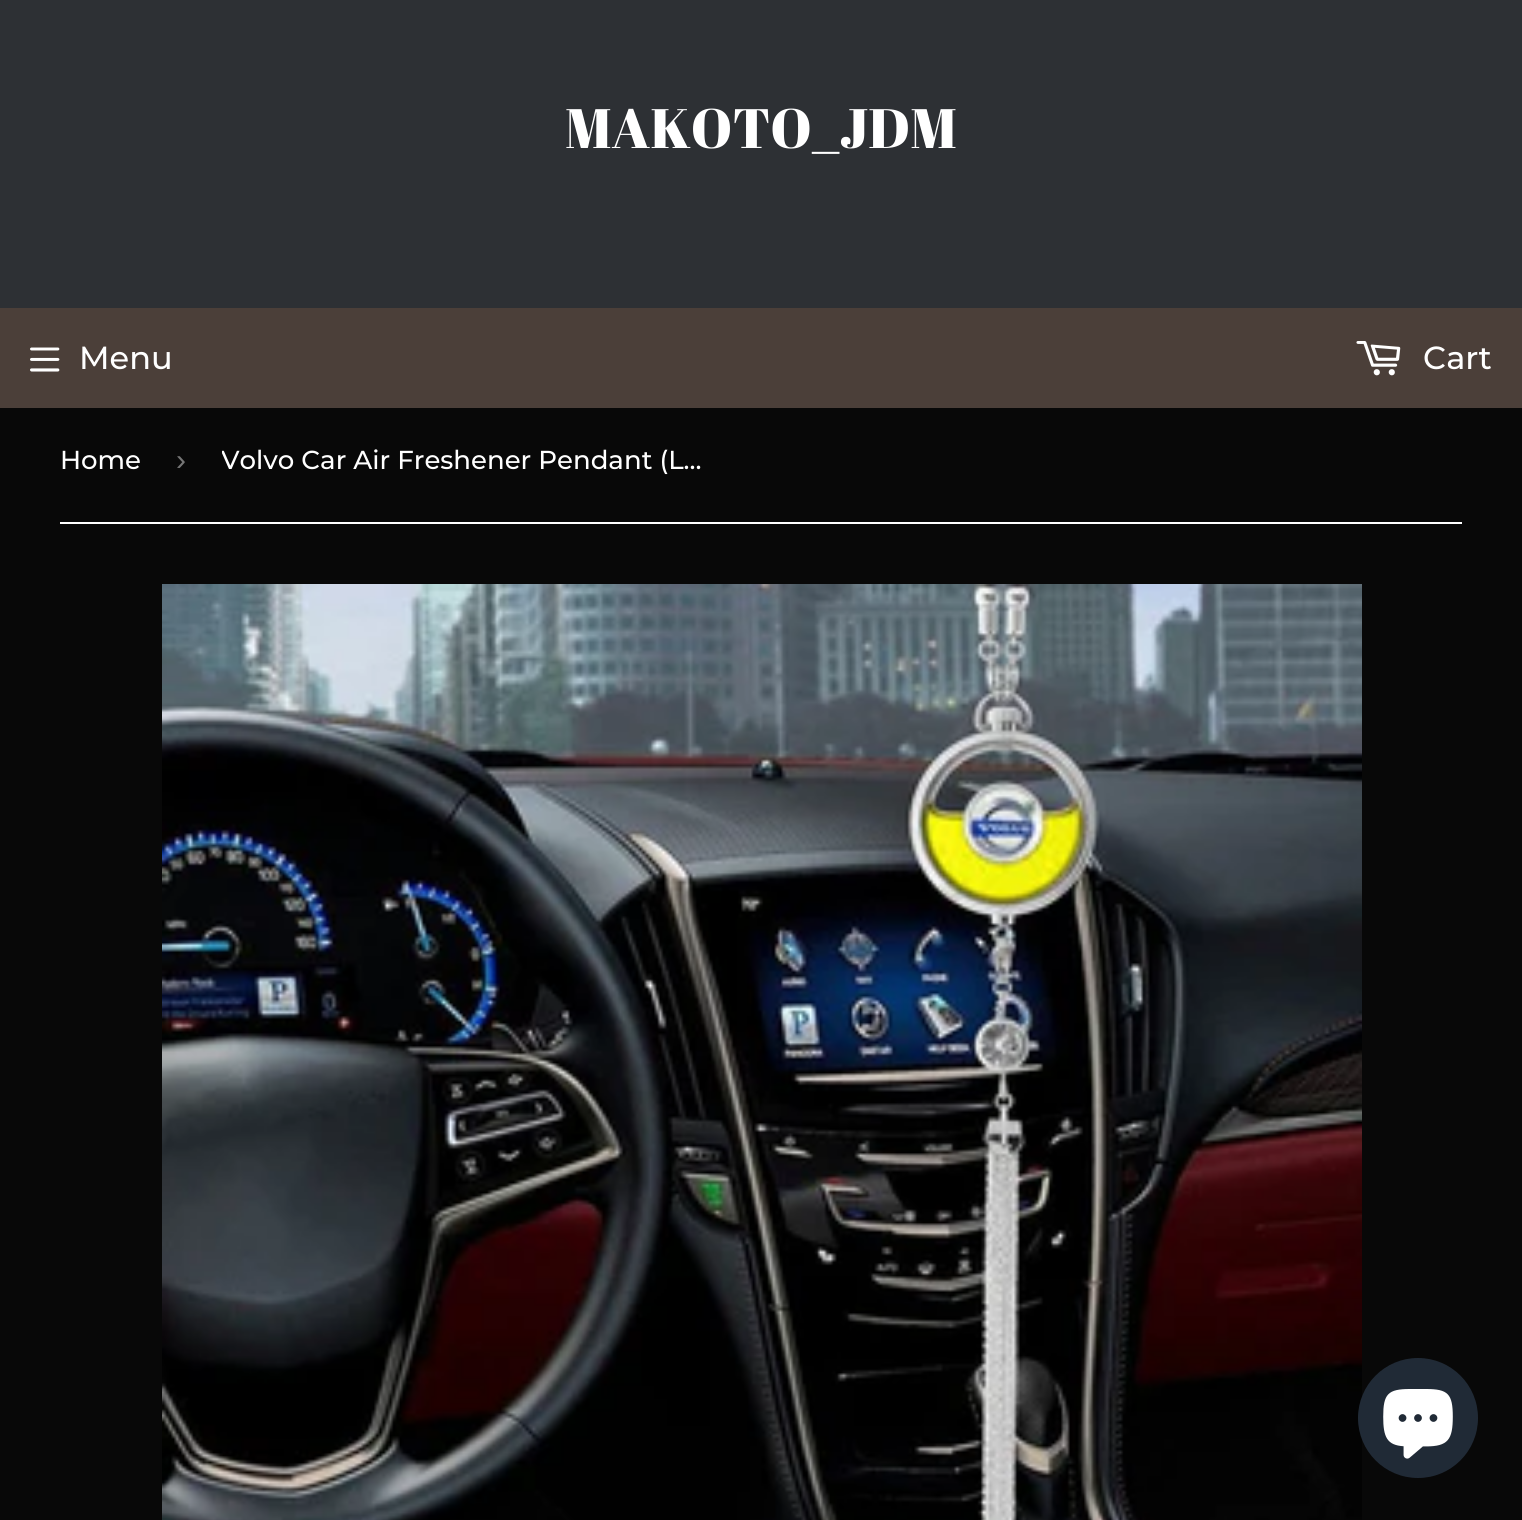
import math
import cairo


def paste(ctx, path, x, y, w, h):
	ctx.save()
	ctx.set_source_surface(cairo.ImageSurface.create_from_png(path), x, y)
	ctx.rectangle(x, y, w, h)
	ctx.fill()
	ctx.restore()

def draw(ctx):
	ctx.set_source_rgb(0.035, 0.035, 0.035)
	ctx.paint()
	ctx.set_source_rgb(0.176, 0.188, 0.204)
	ctx.rectangle(0, 0, 1522, 308)
	ctx.fill()
	ctx.select_font_face('Abril Fatface')
	ctx.set_font_size(55.5)
	ctx.set_source_rgb(1, 1, 1)
	ctx.move_to(565, 148)
	ctx.show_text('MAKOTO_JDM')
	ctx.set_source_rgb(0.294, 0.247, 0.224)
	ctx.rectangle(0, 308, 1522, 100)
	ctx.fill()
	paste(ctx, 'media/1.png', 30, 347, 30, 25)
	ctx.select_font_face('Montserrat Medium')
	ctx.set_font_size(32)
	ctx.set_source_rgb(1, 1, 1)
	ctx.move_to(79, 369)
	ctx.show_text('Menu')
	paste(ctx, 'media/2.png', 1356, 341, 45, 35)
	ctx.move_to(1423, 369)
	ctx.show_text('Cart')
	ctx.rectangle(60, 522, 1402, 2)
	ctx.fill()
	ctx.set_font_size(26)
	ctx.move_to(60, 469)
	ctx.show_text('Home')
	ctx.select_font_face('Liberation Sans')
	ctx.set_font_size(30)
	ctx.set_source_rgb(0.463, 0.463, 0.463)
	ctx.move_to(176, 470)
	ctx.show_text('›')
	ctx.save()
	ctx.rectangle(222, 408, 500, 102)
	ctx.clip()
	ctx.select_font_face('Montserrat Medium')
	ctx.set_font_size(26)
	ctx.set_source_rgb(1, 1, 1)
	ctx.move_to(221, 469)
	ctx.show_text('Volvo Car Air Freshener Pendant (L…')
	ctx.restore()
	paste(ctx, 'media/3.png', 162, 584, 1200, 936)
	ctx.set_source_rgb(0.125, 0.165, 0.212)
	ctx.arc(1418, 1418, 60, 0, 2 * math.pi)
	ctx.fill()
	paste(ctx, 'media/4.png', 1383, 1389, 70, 70)


surface = cairo.ImageSurface(cairo.FORMAT_RGB24, 1522, 1520)
ctx = cairo.Context(surface)
options = cairo.FontOptions()
options.set_hint_metrics(cairo.HINT_METRICS_OFF)
options.set_hint_style(cairo.HINT_STYLE_NONE)
ctx.set_font_options(options)
ctx.set_miter_limit(4)
draw(ctx)
surface.write_to_png('image.png')
